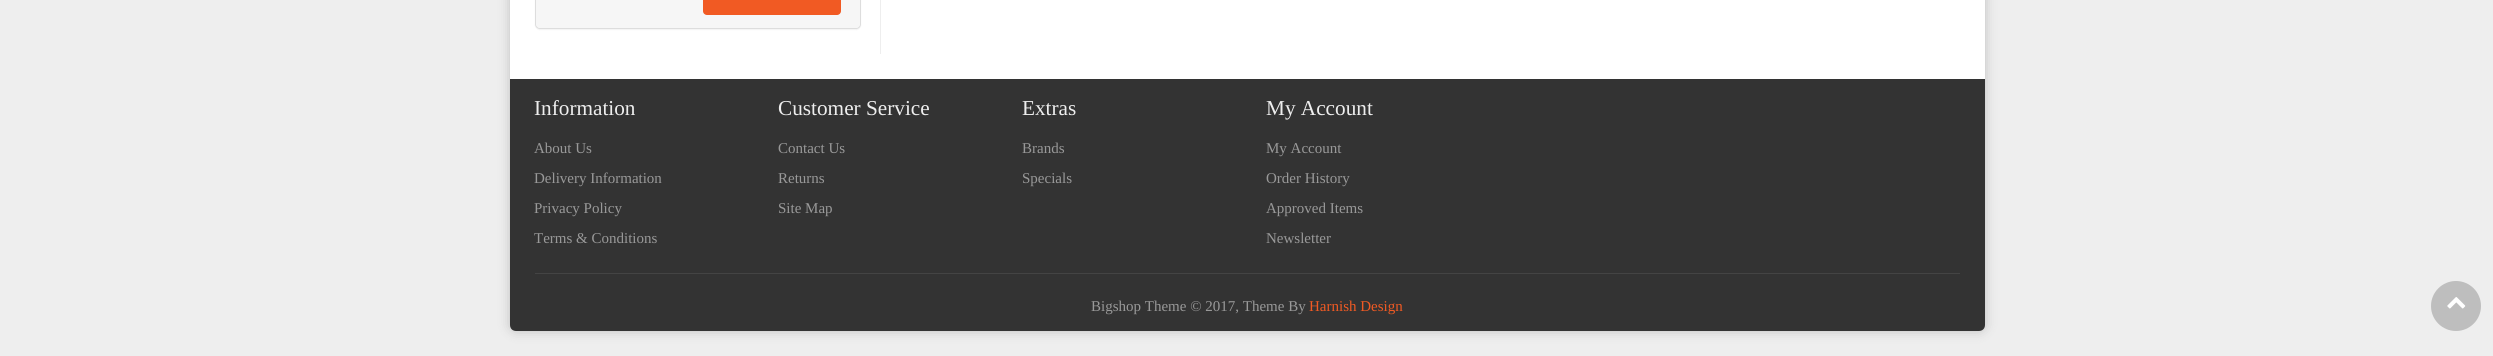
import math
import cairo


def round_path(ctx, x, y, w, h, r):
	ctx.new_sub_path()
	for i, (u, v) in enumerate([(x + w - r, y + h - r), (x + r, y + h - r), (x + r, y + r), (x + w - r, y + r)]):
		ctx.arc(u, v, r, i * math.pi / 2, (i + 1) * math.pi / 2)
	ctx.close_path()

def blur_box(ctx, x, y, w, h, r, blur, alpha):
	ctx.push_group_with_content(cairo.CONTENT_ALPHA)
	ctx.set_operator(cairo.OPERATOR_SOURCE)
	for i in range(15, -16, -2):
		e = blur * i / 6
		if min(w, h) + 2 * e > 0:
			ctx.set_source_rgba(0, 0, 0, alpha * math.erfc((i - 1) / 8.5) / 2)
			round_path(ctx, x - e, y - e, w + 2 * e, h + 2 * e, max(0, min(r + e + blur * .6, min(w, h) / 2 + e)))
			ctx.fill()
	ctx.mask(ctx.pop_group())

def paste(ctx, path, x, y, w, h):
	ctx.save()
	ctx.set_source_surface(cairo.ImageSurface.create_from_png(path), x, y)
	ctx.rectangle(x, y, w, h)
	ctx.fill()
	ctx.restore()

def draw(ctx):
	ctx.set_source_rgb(0.933, 0.933, 0.933)
	ctx.paint()
	ctx.set_source_rgb(0, 0, 0)
	blur_box(ctx, 510, -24, 1475, 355, 6, 6, 0.2)
	ctx.set_source_rgb(1, 1, 1)
	round_path(ctx, 510, -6, 1475, 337, 6)
	ctx.fill()
	ctx.set_source_rgb(0.933, 0.933, 0.933)
	ctx.rectangle(880, 0, 1, 54)
	ctx.fill()
	ctx.set_source_rgb(0, 0, 0)
	blur_box(ctx, 535, -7, 326, 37, 5, 0.5, 0.05)
	round_path(ctx, 535.5, -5.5, 325, 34, 4.5)
	ctx.set_source_rgb(0.867, 0.867, 0.867)
	ctx.set_line_width(1)
	ctx.stroke()
	ctx.set_source_rgb(0.961, 0.961, 0.961)
	ctx.new_path()
	ctx.move_to(536, -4)
	ctx.line_to(860, -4)
	ctx.line_to(860, 24)
	ctx.curve_to(860, 26, 858, 28, 856, 28)
	ctx.line_to(540, 28)
	ctx.curve_to(538, 28, 536, 26, 536, 24)
	ctx.close_path()
	ctx.fill()
	ctx.set_source_rgb(0.945, 0.353, 0.137)
	round_path(ctx, 703, -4, 138, 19, 4)
	ctx.fill()
	ctx.set_source_rgb(0.2, 0.2, 0.2)
	ctx.rectangle(510, 79, 1475, 194)
	ctx.fill()
	ctx.select_font_face('Liberation Serif')
	ctx.set_font_size(21.25)
	ctx.set_source_rgb(0.933, 0.933, 0.933)
	ctx.move_to(534, 115)
	ctx.show_text('Information')
	ctx.set_font_size(15)
	ctx.set_source_rgb(0.6, 0.6, 0.6)
	for x, y, s in [
		(534, 153, 'About Us'),
		(534, 183, 'Delivery Information'),
		(534, 213, 'Privacy Policy'),
		(534, 243, 'Terms & Conditions'),
	]:
		ctx.move_to(x, y)
		ctx.show_text(s)
	ctx.set_font_size(21.25)
	ctx.set_source_rgb(0.933, 0.933, 0.933)
	ctx.move_to(778, 115)
	ctx.show_text('Customer Service')
	ctx.set_font_size(15)
	ctx.set_source_rgb(0.6, 0.6, 0.6)
	for x, y, s in [
		(778, 153, 'Contact Us'),
		(778, 183, 'Returns'),
		(778, 213, 'Site Map'),
	]:
		ctx.move_to(x, y)
		ctx.show_text(s)
	ctx.set_font_size(21.25)
	ctx.set_source_rgb(0.933, 0.933, 0.933)
	ctx.move_to(1022, 115)
	ctx.show_text('Extras')
	ctx.set_font_size(15)
	ctx.set_source_rgb(0.6, 0.6, 0.6)
	ctx.move_to(1022, 153)
	ctx.show_text('Brands')
	ctx.move_to(1022, 183)
	ctx.show_text('Specials')
	ctx.set_font_size(21.25)
	ctx.set_source_rgb(0.933, 0.933, 0.933)
	ctx.move_to(1266, 115)
	ctx.show_text('My Account')
	ctx.set_font_size(15)
	ctx.set_source_rgb(0.6, 0.6, 0.6)
	for x, y, s in [
		(1266, 153, 'My Account'),
		(1266, 183, 'Order History'),
		(1266, 213, 'Approved Items'),
		(1266, 243, 'Newsletter'),
	]:
		ctx.move_to(x, y)
		ctx.show_text(s)
	ctx.set_source_rgb(0.2, 0.2, 0.2)
	ctx.new_path()
	ctx.move_to(510, 273)
	ctx.line_to(1985, 273)
	ctx.line_to(1985, 325)
	ctx.curve_to(1985, 328.5, 1982.5, 331, 1979, 331)
	ctx.line_to(516, 331)
	ctx.curve_to(512.5, 331, 510, 328.5, 510, 325)
	ctx.close_path()
	ctx.fill()
	ctx.set_source_rgb(0.267, 0.267, 0.267)
	ctx.rectangle(535, 273, 1425, 1)
	ctx.fill()
	ctx.set_source_rgb(0.6, 0.6, 0.6)
	ctx.move_to(1091, 311)
	ctx.show_text('Bigshop Theme © 2017, Theme By')
	ctx.set_source_rgb(0.945, 0.353, 0.137)
	ctx.move_to(1309, 311)
	ctx.show_text('Harnish Design')
	ctx.set_source_rgb(0.745, 0.745, 0.745)
	ctx.new_path()
	ctx.arc(2456, 306, 25, 0, 2 * math.pi)
	ctx.fill()
	paste(ctx, 'media/1.png', 2447, 297, 19, 12)


surface = cairo.ImageSurface(cairo.FORMAT_RGB24, 2493, 356)
ctx = cairo.Context(surface)
options = cairo.FontOptions()
options.set_hint_metrics(cairo.HINT_METRICS_OFF)
options.set_hint_style(cairo.HINT_STYLE_NONE)
ctx.set_font_options(options)
ctx.set_miter_limit(4)
draw(ctx)
surface.write_to_png('image.png')
